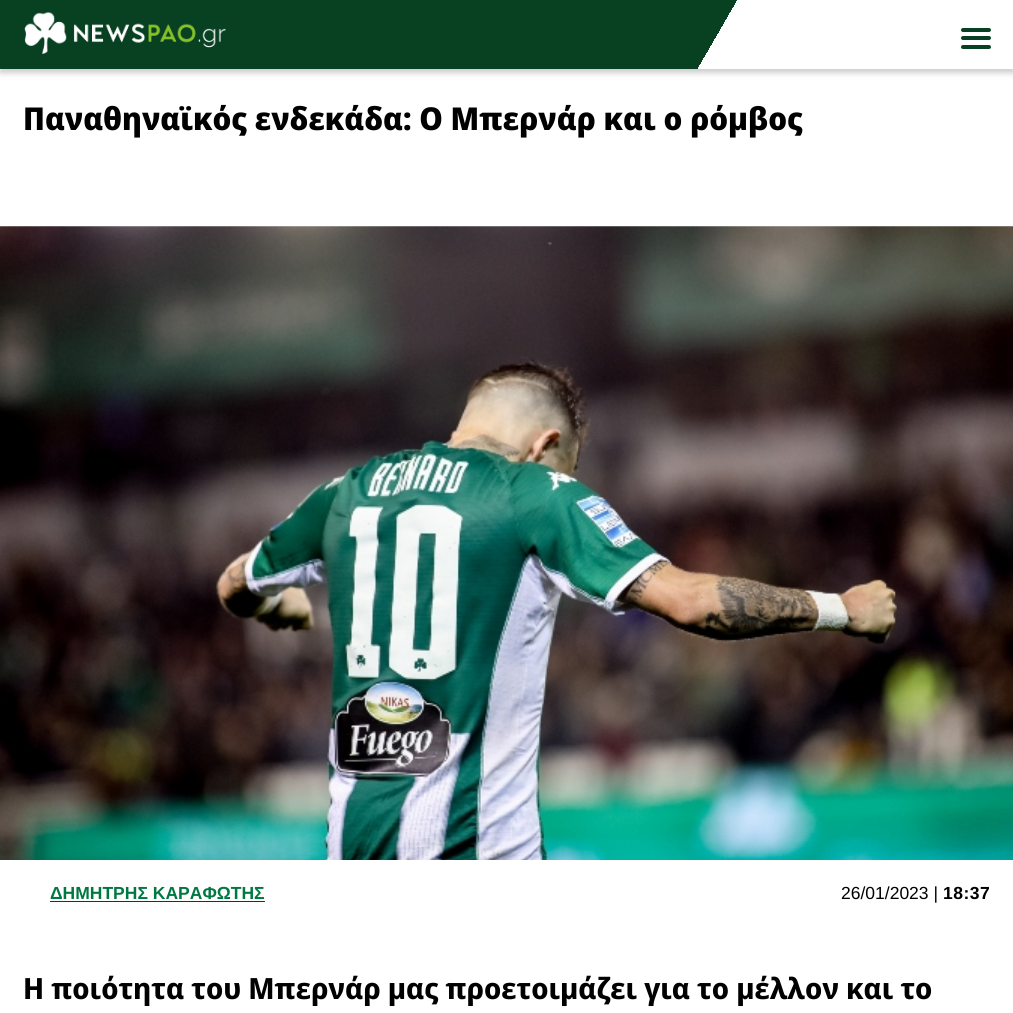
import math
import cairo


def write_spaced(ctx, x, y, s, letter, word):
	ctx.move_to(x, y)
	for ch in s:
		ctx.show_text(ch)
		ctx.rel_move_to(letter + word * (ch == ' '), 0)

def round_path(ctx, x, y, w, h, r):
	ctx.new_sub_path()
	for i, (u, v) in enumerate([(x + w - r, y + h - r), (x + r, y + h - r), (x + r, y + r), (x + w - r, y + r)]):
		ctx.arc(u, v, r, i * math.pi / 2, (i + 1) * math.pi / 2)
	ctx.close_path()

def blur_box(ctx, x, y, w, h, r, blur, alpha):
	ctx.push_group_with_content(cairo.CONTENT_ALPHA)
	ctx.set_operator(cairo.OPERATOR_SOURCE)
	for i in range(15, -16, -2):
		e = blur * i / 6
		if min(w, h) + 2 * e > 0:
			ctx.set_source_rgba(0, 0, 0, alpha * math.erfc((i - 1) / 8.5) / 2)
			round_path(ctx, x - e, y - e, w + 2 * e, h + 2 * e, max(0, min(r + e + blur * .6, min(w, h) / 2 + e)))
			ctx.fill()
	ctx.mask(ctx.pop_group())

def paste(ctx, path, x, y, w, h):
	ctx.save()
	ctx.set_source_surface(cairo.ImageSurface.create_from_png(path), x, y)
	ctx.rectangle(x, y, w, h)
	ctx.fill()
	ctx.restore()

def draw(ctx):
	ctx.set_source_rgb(1, 1, 1)
	ctx.paint()
	ctx.set_source_rgb(0, 0, 0)
	blur_box(ctx, 0, 4, 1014, 69, 0, 3, 0.2)
	gradient = cairo.LinearGradient(112, -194, 902, 262)
	gradient.add_color_stop_rgba(0.7, 0.031, 0.251, 0.133, 1)
	gradient.add_color_stop_rgba(0.7, 1, 1, 1, 1)
	ctx.set_source(gradient)
	ctx.rectangle(0, 0, 1013, 69)
	ctx.fill()
	paste(ctx, 'media/1.png', 24, 11, 202, 44)
	ctx.set_source_rgb(0.031, 0.251, 0.133)
	round_path(ctx, 961, 28, 30, 4, 2)
	ctx.fill()
	round_path(ctx, 961, 36, 30, 4, 2)
	ctx.fill()
	round_path(ctx, 961, 45, 30, 4, 2)
	ctx.fill()
	ctx.select_font_face('Noto Sans Display ExtraBold')
	ctx.set_font_size(31.5)
	ctx.set_source_rgb(0, 0, 0)
	ctx.move_to(23, 130)
	ctx.show_text('Παναθηναϊκός ενδεκάδα: Ο Μπερνάρ και ο ρόμβος')
	paste(ctx, 'media/2.png', 0, 226, 1013, 634)
	ctx.select_font_face('Liberation Sans', cairo.FONT_SLANT_NORMAL, cairo.FONT_WEIGHT_BOLD)
	ctx.set_font_size(17.5)
	ctx.set_source_rgb(0, 0.471, 0.255)
	ctx.move_to(50, 899)
	ctx.show_text('ΔΗΜΗΤΡΗΣ ΚΑΡΑΦΩΤΗΣ')
	ctx.set_source_rgb(0.031, 0.251, 0.133)
	ctx.rectangle(50, 901, 215, 1)
	ctx.fill()
	ctx.select_font_face('Liberation Sans')
	ctx.set_source_rgb(0, 0, 0)
	ctx.move_to(841, 899)
	ctx.show_text('26/01/2023 |')
	ctx.select_font_face('Liberation Sans', cairo.FONT_SLANT_NORMAL, cairo.FONT_WEIGHT_BOLD)
	write_spaced(ctx, 943, 899, '18:37', 0.5, 0)
	ctx.select_font_face('Noto Sans Display', cairo.FONT_SLANT_NORMAL, cairo.FONT_WEIGHT_BOLD)
	ctx.set_font_size(29.25)
	ctx.move_to(23, 999)
	ctx.show_text('Η ποιότητα του Μπερνάρ μας προετοιμάζει για το μέλλον και το')


surface = cairo.ImageSurface(cairo.FORMAT_RGB24, 1013, 1013)
ctx = cairo.Context(surface)
options = cairo.FontOptions()
options.set_hint_metrics(cairo.HINT_METRICS_OFF)
options.set_hint_style(cairo.HINT_STYLE_NONE)
ctx.set_font_options(options)
ctx.set_miter_limit(4)
draw(ctx)
surface.write_to_png('image.png')
